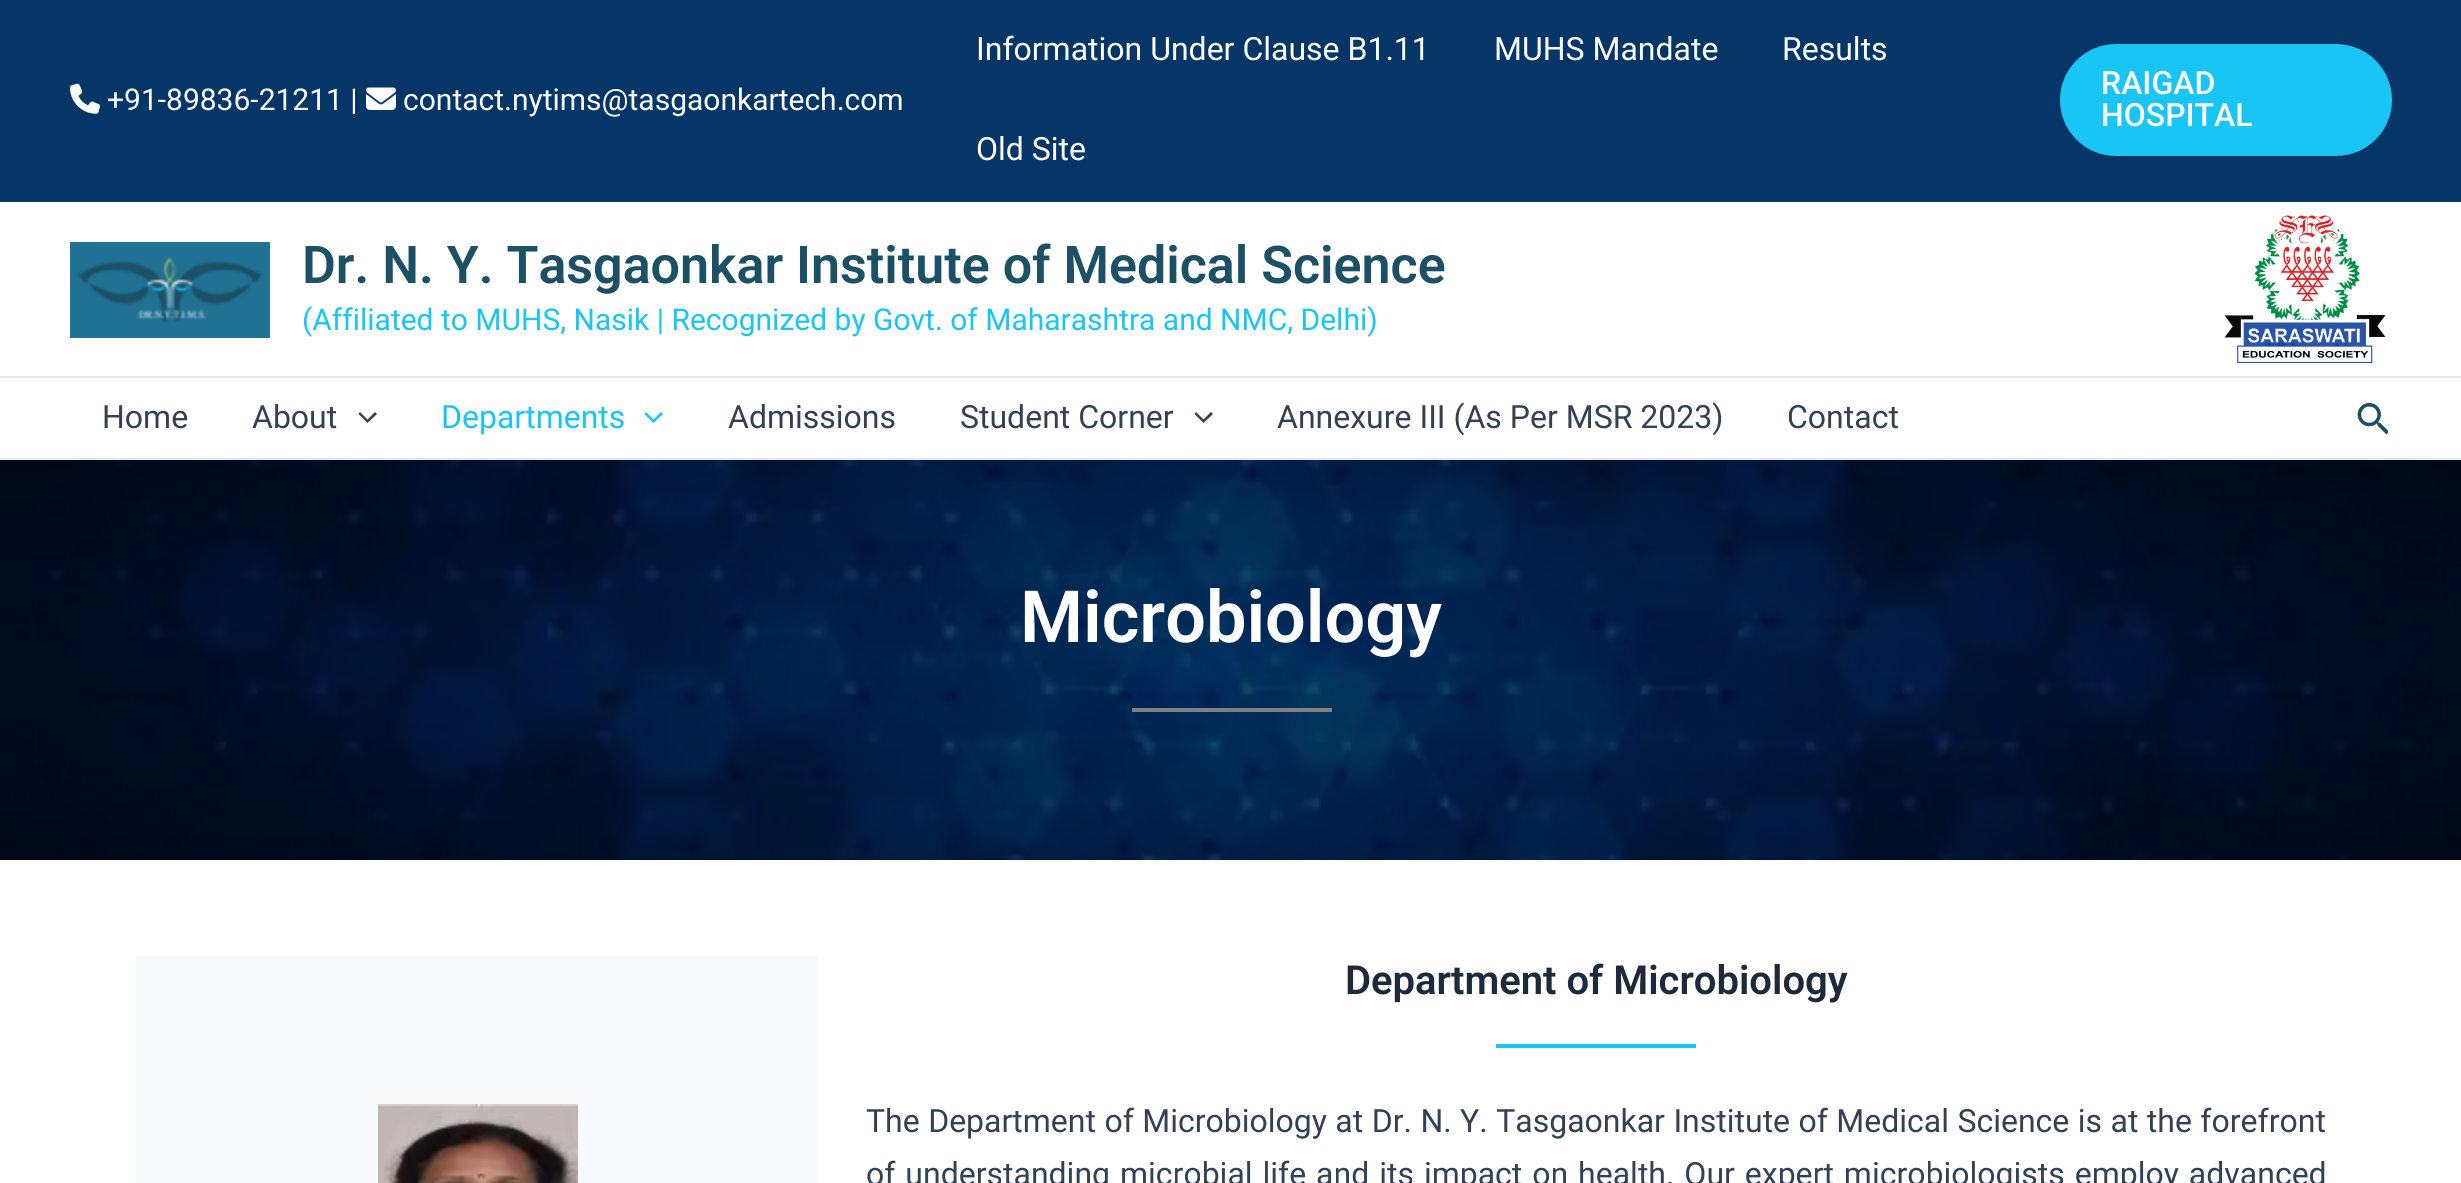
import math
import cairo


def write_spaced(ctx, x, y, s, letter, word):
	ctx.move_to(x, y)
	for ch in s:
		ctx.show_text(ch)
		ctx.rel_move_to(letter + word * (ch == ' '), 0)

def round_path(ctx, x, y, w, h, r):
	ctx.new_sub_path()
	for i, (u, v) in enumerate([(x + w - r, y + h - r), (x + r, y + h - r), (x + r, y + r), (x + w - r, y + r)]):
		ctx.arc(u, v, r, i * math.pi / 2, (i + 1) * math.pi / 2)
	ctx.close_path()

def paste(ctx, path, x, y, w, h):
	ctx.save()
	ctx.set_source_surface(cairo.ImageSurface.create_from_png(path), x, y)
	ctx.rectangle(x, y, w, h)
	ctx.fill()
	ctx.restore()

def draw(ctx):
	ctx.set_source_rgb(1, 1, 1)
	ctx.paint()
	ctx.set_source_rgb(0.02, 0.212, 0.404)
	ctx.rectangle(0, 0, 2461, 202)
	ctx.fill()
	paste(ctx, 'media/1.png', 70, 83, 30, 31)
	ctx.select_font_face('Roboto')
	ctx.set_font_size(30)
	ctx.set_source_rgb(1, 1, 1)
	ctx.move_to(107, 110)
	ctx.show_text('+91-89836-21211 |')
	paste(ctx, 'media/2.png', 366, 87, 30, 23)
	ctx.move_to(403, 110)
	ctx.show_text('contact.nytims@tasgaonkartech.com')
	ctx.set_font_size(32)
	for x, y, s in [
		(976, 60, 'Information Under Clause B1.11'),
		(1494, 60, 'MUHS Mandate'),
		(1782, 60, 'Results'),
		(976, 160, 'Old Site'),
	]:
		ctx.move_to(x, y)
		ctx.show_text(s)
	ctx.set_source_rgb(0.094, 0.773, 0.957)
	round_path(ctx, 2060, 44, 332, 112, 56)
	ctx.fill()
	ctx.select_font_face('Roboto Medium')
	ctx.set_source_rgb(1, 1, 1)
	ctx.move_to(2101, 94)
	ctx.show_text('RAIGAD')
	ctx.move_to(2101, 126)
	ctx.show_text('HOSPITAL')
	ctx.set_source_rgb(0.886, 0.91, 0.941)
	ctx.rectangle(0, 376, 2461, 2)
	ctx.fill()
	paste(ctx, 'media/3.png', 70, 242, 200, 96)
	ctx.select_font_face('Roboto SemiBold')
	ctx.set_font_size(52)
	ctx.set_source_rgb(0.11, 0.314, 0.392)
	ctx.move_to(302, 283)
	ctx.show_text('Dr. N. Y. Tasgaonkar Institute of Medical Science')
	ctx.select_font_face('Roboto')
	ctx.set_font_size(30)
	ctx.set_source_rgb(0.094, 0.773, 0.957)
	ctx.move_to(302, 330)
	ctx.show_text('(Affiliated to MUHS, Nasik | Recognized by Govt. of Maharashtra and NMC, Delhi)')
	paste(ctx, 'media/4.png', 2224, 215, 162, 149)
	ctx.set_source_rgb(0.886, 0.91, 0.941)
	ctx.rectangle(0, 458, 2461, 2)
	ctx.fill()
	ctx.set_font_size(32)
	ctx.set_source_rgb(0.2, 0.255, 0.333)
	ctx.move_to(102, 428)
	ctx.show_text('Home')
	ctx.move_to(252, 428)
	ctx.show_text('About')
	ctx.new_path()
	ctx.move_to(358.5, 414)
	ctx.line_to(367.5, 423)
	ctx.line_to(377, 414)
	ctx.line_to(375, 412)
	ctx.line_to(367.5, 419.5)
	ctx.line_to(360, 412)
	ctx.close_path()
	ctx.fill()
	ctx.set_source_rgb(0.094, 0.773, 0.957)
	ctx.move_to(441, 428)
	ctx.show_text('Departments')
	ctx.new_path()
	ctx.move_to(644.5, 414)
	ctx.line_to(653.5, 423)
	ctx.line_to(663, 414)
	ctx.line_to(661, 412)
	ctx.line_to(653.5, 419.5)
	ctx.line_to(646, 412)
	ctx.close_path()
	ctx.fill()
	ctx.set_source_rgb(0.2, 0.255, 0.333)
	ctx.move_to(728, 428)
	ctx.show_text('Admissions')
	ctx.move_to(960, 428)
	ctx.show_text('Student Corner')
	ctx.new_path()
	ctx.move_to(1194.5, 414)
	ctx.line_to(1203.5, 423)
	ctx.line_to(1213, 414)
	ctx.line_to(1211, 412)
	ctx.line_to(1203.5, 419.5)
	ctx.line_to(1196, 412)
	ctx.close_path()
	ctx.fill()
	ctx.move_to(1277, 428)
	ctx.show_text('Annexure III (As Per MSR 2023)')
	ctx.move_to(1787, 428)
	ctx.show_text('Contact')
	paste(ctx, 'media/5.png', 2357, 402, 31, 33)
	paste(ctx, 'media/6.png', 0, 460, 2461, 400)
	ctx.select_font_face('Roboto SemiBold')
	ctx.set_font_size(72)
	ctx.set_source_rgb(1, 1, 1)
	ctx.move_to(1020, 642)
	ctx.show_text('Microbiology')
	ctx.set_source_rgb(0.502, 0.502, 0.502)
	ctx.rectangle(1132, 708, 200, 4)
	ctx.fill()
	ctx.set_source_rgb(0.976, 0.98, 0.984)
	ctx.rectangle(136, 956, 682, 227)
	ctx.fill()
	paste(ctx, 'media/7.png', 378, 1104, 200, 79)
	ctx.set_font_size(40)
	ctx.set_source_rgb(0.118, 0.161, 0.231)
	ctx.move_to(1345, 994)
	ctx.show_text('Department of Microbiology')
	ctx.set_source_rgb(0.094, 0.773, 0.957)
	ctx.rectangle(1496, 1044, 200, 4)
	ctx.fill()
	ctx.select_font_face('Roboto')
	ctx.set_font_size(32)
	ctx.set_source_rgb(0.2, 0.255, 0.333)
	write_spaced(ctx, 866, 1132, 'The Department of Microbiology at Dr. N. Y. Tasgaonkar Institute of Medical Science is at the forefront', 0, 0.5)
	write_spaced(ctx, 866, 1185, 'of understanding microbial life and its impact on health. Our expert microbiologists employ advanced', 0, 2)


surface = cairo.ImageSurface(cairo.FORMAT_RGB24, 2461, 1183)
ctx = cairo.Context(surface)
options = cairo.FontOptions()
options.set_hint_metrics(cairo.HINT_METRICS_OFF)
options.set_hint_style(cairo.HINT_STYLE_NONE)
ctx.set_font_options(options)
ctx.set_miter_limit(4)
draw(ctx)
surface.write_to_png('image.png')
